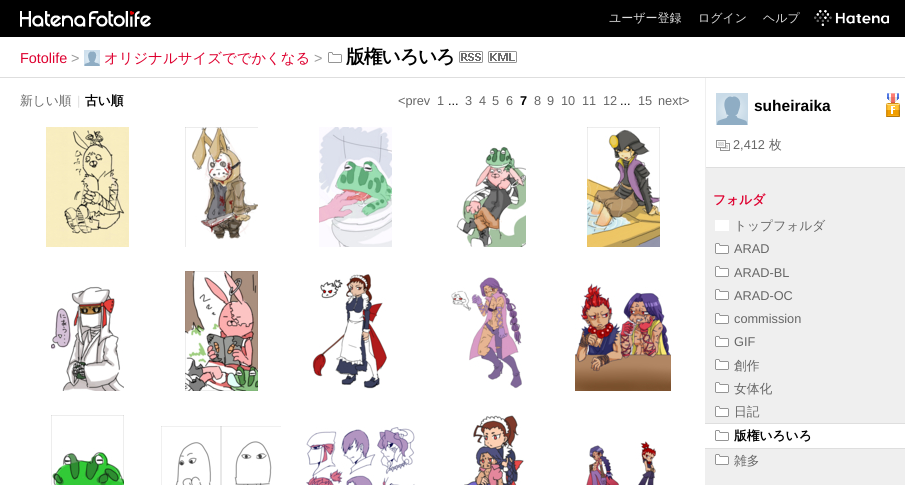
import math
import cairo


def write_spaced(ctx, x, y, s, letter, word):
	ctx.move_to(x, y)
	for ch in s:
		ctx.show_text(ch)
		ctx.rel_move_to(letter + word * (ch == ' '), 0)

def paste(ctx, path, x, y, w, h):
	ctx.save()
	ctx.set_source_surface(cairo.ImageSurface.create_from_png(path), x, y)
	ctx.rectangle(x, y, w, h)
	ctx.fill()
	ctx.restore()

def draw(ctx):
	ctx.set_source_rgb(1, 1, 1)
	ctx.paint()
	ctx.set_source_rgb(0.937, 0.937, 0.937)
	ctx.rectangle(705, 78, 200, 407)
	ctx.fill()
	ctx.set_source_rgb(0, 0, 0)
	ctx.rectangle(0, 0, 905, 37)
	ctx.fill()
	paste(ctx, 'media/1.png', 20, 11, 66, 16)
	paste(ctx, 'media/2.png', 89, 11, 62, 16)
	ctx.select_font_face('WenQuanYi Zen Hei Medium')
	ctx.set_font_size(12)
	ctx.set_source_rgb(0.871, 0.871, 0.871)
	for x, y, s in [
		(609, 22, 'ユーザー登録'),
		(698, 22, 'ログイン'),
		(763, 22, 'ヘルプ'),
	]:
		ctx.move_to(x, y)
		ctx.show_text(s)
	paste(ctx, 'media/3.png', 814, 10, 75, 16)
	ctx.rectangle(0, 77, 905, 1)
	ctx.fill()
	ctx.select_font_face('Liberation Sans')
	ctx.set_font_size(14.4)
	ctx.set_source_rgb(0.871, 0, 0.184)
	ctx.move_to(20, 63)
	ctx.show_text('Fotolife')
	ctx.set_source_rgb(0.6, 0.6, 0.6)
	ctx.move_to(71, 63)
	ctx.show_text('>')
	paste(ctx, 'media/4.png', 84, 50, 16, 16)
	ctx.select_font_face('WenQuanYi Zen Hei Medium')
	ctx.set_source_rgb(0.871, 0, 0.184)
	ctx.move_to(104, 63)
	ctx.show_text('オリジナルサイズででかくなる')
	ctx.select_font_face('Liberation Sans')
	ctx.set_source_rgb(0.6, 0.6, 0.6)
	ctx.move_to(314, 63)
	ctx.show_text('>')
	paste(ctx, 'media/5.png', 328, 52, 14, 11)
	ctx.select_font_face('WenQuanYi Zen Hei', cairo.FONT_SLANT_NORMAL, cairo.FONT_WEIGHT_BOLD)
	ctx.set_font_size(18.75)
	ctx.set_source_rgb(0, 0, 0)
	write_spaced(ctx, 346, 63, '版権いろいろ', -1, 0)
	paste(ctx, 'media/6.png', 459, 51, 24, 12)
	paste(ctx, 'media/7.png', 488, 51, 29, 12)
	ctx.select_font_face('WenQuanYi Zen Hei Medium')
	ctx.set_font_size(12.75)
	ctx.set_source_rgb(0.4, 0.4, 0.4)
	ctx.move_to(20, 105)
	ctx.show_text('新しい順')
	ctx.select_font_face('Liberation Sans')
	ctx.set_source_rgb(0.871, 0.871, 0.871)
	ctx.move_to(77, 105)
	ctx.show_text('|')
	ctx.select_font_face('WenQuanYi Zen Hei', cairo.FONT_SLANT_NORMAL, cairo.FONT_WEIGHT_BOLD)
	ctx.set_source_rgb(0, 0, 0)
	ctx.move_to(85, 105)
	ctx.show_text('古い順')
	ctx.select_font_face('Liberation Sans')
	ctx.set_source_rgb(0.4, 0.4, 0.4)
	ctx.move_to(398, 105)
	ctx.show_text('<prev')
	ctx.move_to(437, 105)
	ctx.show_text('1')
	ctx.set_source_rgb(0, 0, 0)
	ctx.move_to(448, 105)
	ctx.show_text('...')
	ctx.set_source_rgb(0.4, 0.4, 0.4)
	for x, y, s in [
		(465, 105, '3'),
		(479, 105, '4'),
		(492, 105, '5'),
		(506, 105, '6'),
	]:
		ctx.move_to(x, y)
		ctx.show_text(s)
	ctx.select_font_face('Liberation Sans', cairo.FONT_SLANT_NORMAL, cairo.FONT_WEIGHT_BOLD)
	ctx.set_source_rgb(0, 0, 0)
	ctx.move_to(520, 105)
	ctx.show_text('7')
	ctx.select_font_face('Liberation Sans')
	ctx.set_source_rgb(0.4, 0.4, 0.4)
	for x, y, s in [
		(534, 105, '8'),
		(547, 105, '9'),
		(561, 105, '10'),
		(582, 105, '11'),
		(603, 105, '12'),
	]:
		ctx.move_to(x, y)
		ctx.show_text(s)
	ctx.set_source_rgb(0, 0, 0)
	ctx.move_to(620, 105)
	ctx.show_text('...')
	ctx.set_source_rgb(0.4, 0.4, 0.4)
	ctx.move_to(638, 105)
	ctx.show_text('15')
	ctx.move_to(658, 105)
	ctx.show_text('next>')
	paste(ctx, 'media/8.png', 46, 127, 83, 120)
	paste(ctx, 'media/9.png', 185, 127, 73, 120)
	paste(ctx, 'media/10.png', 319, 127, 73, 120)
	paste(ctx, 'media/11.png', 456, 146, 70, 101)
	paste(ctx, 'media/12.png', 587, 127, 73, 120)
	paste(ctx, 'media/13.png', 51, 286, 73, 105)
	paste(ctx, 'media/14.png', 185, 271, 73, 120)
	paste(ctx, 'media/15.png', 312, 274, 75, 115)
	paste(ctx, 'media/16.png', 451, 277, 71, 112)
	paste(ctx, 'media/17.png', 575, 283, 96, 108)
	paste(ctx, 'media/18.png', 51, 415, 73, 70)
	paste(ctx, 'media/19.png', 161, 426, 120, 59)
	paste(ctx, 'media/20.png', 306, 427, 109, 58)
	paste(ctx, 'media/21.png', 464, 415, 60, 70)
	paste(ctx, 'media/22.png', 586, 441, 71, 44)
	ctx.set_source_rgb(1, 1, 1)
	ctx.rectangle(706, 78, 199, 89)
	ctx.fill()
	ctx.set_source_rgb(0.871, 0.871, 0.871)
	ctx.rectangle(706, 167, 199, 1)
	ctx.fill()
	paste(ctx, 'media/23.png', 716, 93, 32, 32)
	ctx.select_font_face('Liberation Sans', cairo.FONT_SLANT_NORMAL, cairo.FONT_WEIGHT_BOLD)
	ctx.set_font_size(15.5)
	ctx.set_source_rgb(0, 0, 0)
	ctx.move_to(754, 111)
	ctx.show_text('suheiraika')
	paste(ctx, 'media/24.png', 886, 93, 14, 24)
	paste(ctx, 'media/25.png', 716, 140, 14, 11)
	ctx.select_font_face('Liberation Sans')
	ctx.set_font_size(12.75)
	ctx.set_source_rgb(0.4, 0.4, 0.4)
	ctx.move_to(733, 149)
	ctx.show_text('2,412')
	ctx.select_font_face('WenQuanYi Zen Hei Medium')
	ctx.move_to(769, 149)
	ctx.show_text('枚')
	ctx.select_font_face('WenQuanYi Zen Hei', cairo.FONT_SLANT_NORMAL, cairo.FONT_WEIGHT_BOLD)
	ctx.set_source_rgb(0.871, 0, 0.184)
	ctx.move_to(713, 204)
	ctx.show_text('フォルダ')
	ctx.select_font_face('WenQuanYi Zen Hei Medium')
	ctx.set_source_rgb(0.4, 0.4, 0.4)
	ctx.move_to(734, 230)
	ctx.show_text('トップフォルダ')
	ctx.set_source_rgb(1, 1, 1)
	ctx.rectangle(715, 220, 14, 11)
	ctx.fill()
	paste(ctx, 'media/26.png', 715, 243, 14, 11)
	ctx.select_font_face('Liberation Sans')
	ctx.set_source_rgb(0.4, 0.4, 0.4)
	ctx.move_to(734, 253)
	ctx.show_text('ARAD')
	paste(ctx, 'media/26.png', 715, 266, 14, 11)
	ctx.move_to(734, 277)
	ctx.show_text('ARAD-BL')
	paste(ctx, 'media/26.png', 715, 289, 14, 11)
	ctx.move_to(734, 300)
	ctx.show_text('ARAD-OC')
	paste(ctx, 'media/26.png', 715, 313, 14, 11)
	ctx.move_to(734, 323)
	ctx.show_text('commission')
	paste(ctx, 'media/26.png', 715, 336, 14, 11)
	ctx.move_to(734, 346)
	ctx.show_text('GIF')
	paste(ctx, 'media/26.png', 715, 359, 14, 11)
	ctx.select_font_face('WenQuanYi Zen Hei Medium')
	ctx.move_to(734, 370)
	ctx.show_text('創作')
	paste(ctx, 'media/26.png', 715, 382, 14, 11)
	ctx.move_to(734, 393)
	ctx.show_text('女体化')
	paste(ctx, 'media/26.png', 715, 406, 14, 11)
	ctx.move_to(734, 416)
	ctx.show_text('日記')
	ctx.set_source_rgb(1, 1, 1)
	ctx.rectangle(705, 424, 200, 24)
	ctx.fill()
	ctx.set_source_rgb(0.871, 0.871, 0.871)
	ctx.rectangle(705, 423, 200, 1)
	ctx.rectangle(705, 448, 200, 1)
	ctx.fill()
	paste(ctx, 'media/5.png', 715, 430, 14, 11)
	ctx.select_font_face('WenQuanYi Zen Hei', cairo.FONT_SLANT_NORMAL, cairo.FONT_WEIGHT_BOLD)
	ctx.set_source_rgb(0, 0, 0)
	ctx.move_to(734, 440)
	ctx.show_text('版権いろいろ')
	paste(ctx, 'media/26.png', 715, 454, 14, 11)
	ctx.select_font_face('WenQuanYi Zen Hei Medium')
	ctx.set_source_rgb(0.4, 0.4, 0.4)
	ctx.move_to(734, 465)
	ctx.show_text('雑多')


surface = cairo.ImageSurface(cairo.FORMAT_RGB24, 905, 485)
ctx = cairo.Context(surface)
options = cairo.FontOptions()
options.set_hint_metrics(cairo.HINT_METRICS_OFF)
options.set_hint_style(cairo.HINT_STYLE_NONE)
ctx.set_font_options(options)
ctx.set_miter_limit(4)
draw(ctx)
surface.write_to_png('image.png')
